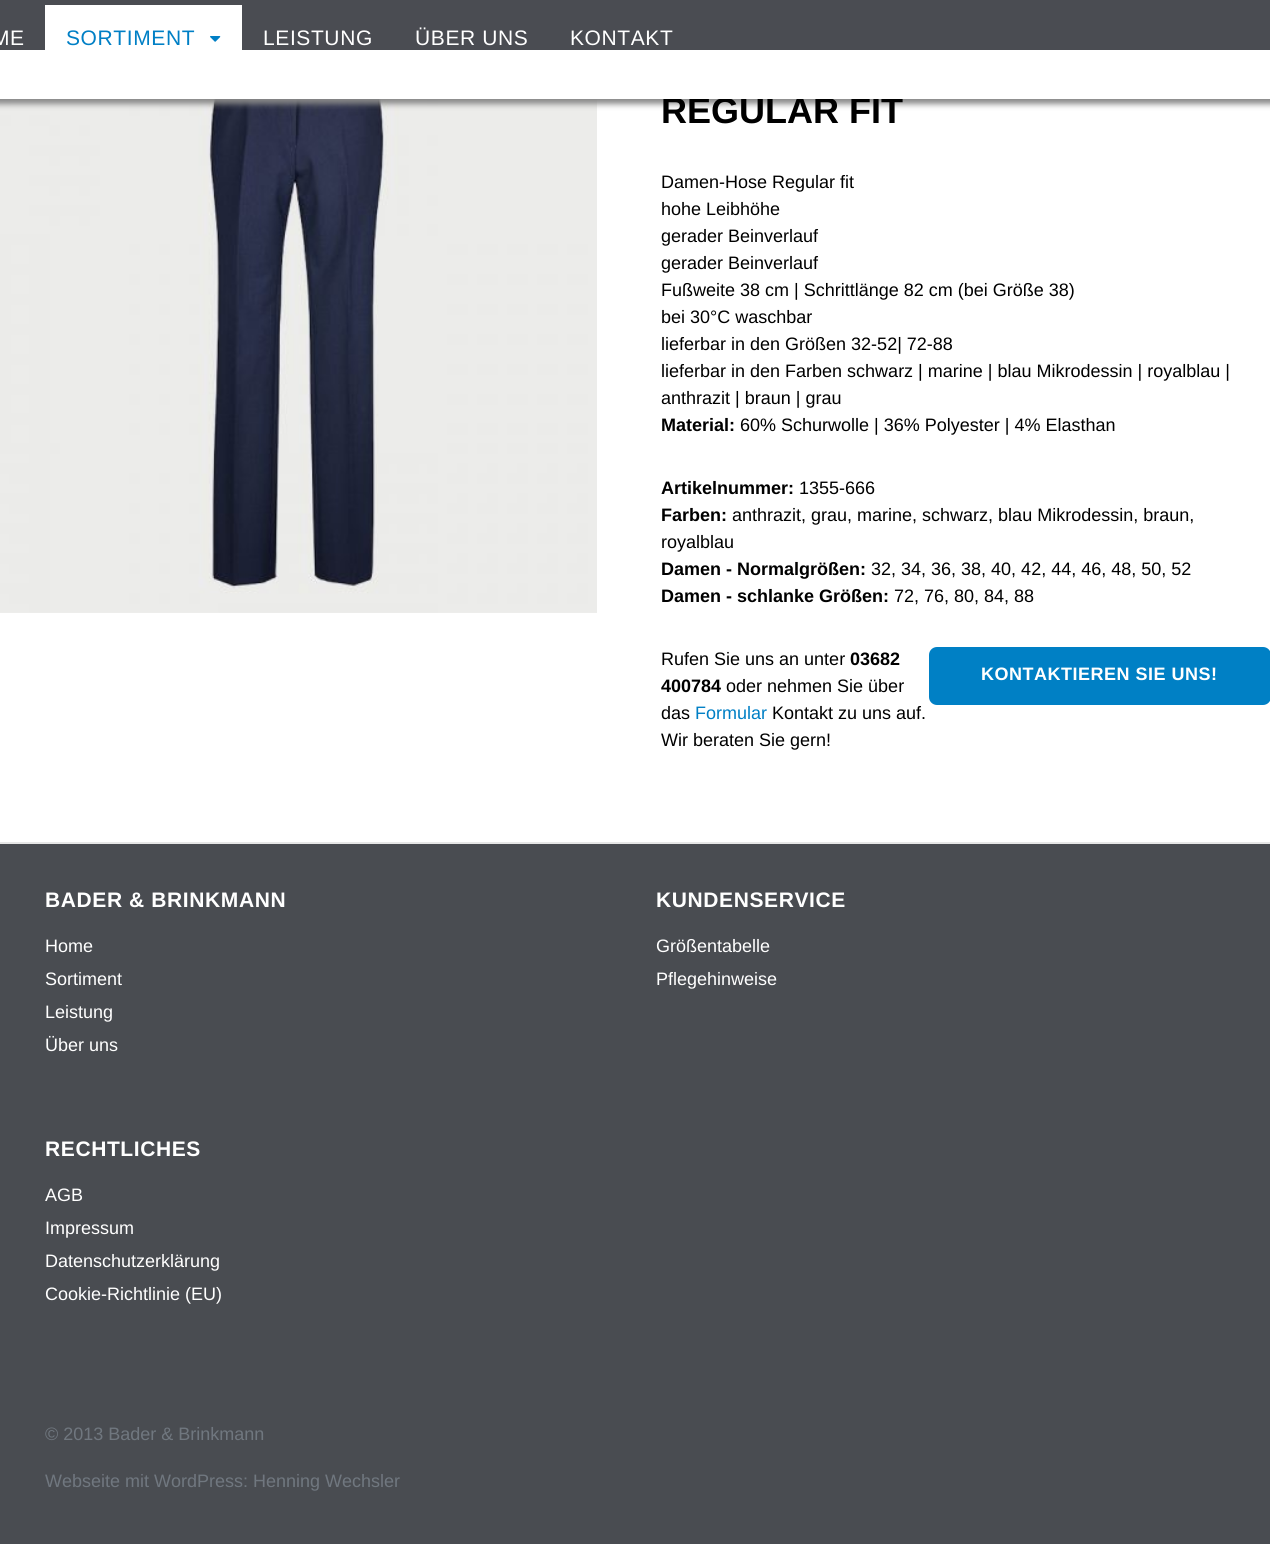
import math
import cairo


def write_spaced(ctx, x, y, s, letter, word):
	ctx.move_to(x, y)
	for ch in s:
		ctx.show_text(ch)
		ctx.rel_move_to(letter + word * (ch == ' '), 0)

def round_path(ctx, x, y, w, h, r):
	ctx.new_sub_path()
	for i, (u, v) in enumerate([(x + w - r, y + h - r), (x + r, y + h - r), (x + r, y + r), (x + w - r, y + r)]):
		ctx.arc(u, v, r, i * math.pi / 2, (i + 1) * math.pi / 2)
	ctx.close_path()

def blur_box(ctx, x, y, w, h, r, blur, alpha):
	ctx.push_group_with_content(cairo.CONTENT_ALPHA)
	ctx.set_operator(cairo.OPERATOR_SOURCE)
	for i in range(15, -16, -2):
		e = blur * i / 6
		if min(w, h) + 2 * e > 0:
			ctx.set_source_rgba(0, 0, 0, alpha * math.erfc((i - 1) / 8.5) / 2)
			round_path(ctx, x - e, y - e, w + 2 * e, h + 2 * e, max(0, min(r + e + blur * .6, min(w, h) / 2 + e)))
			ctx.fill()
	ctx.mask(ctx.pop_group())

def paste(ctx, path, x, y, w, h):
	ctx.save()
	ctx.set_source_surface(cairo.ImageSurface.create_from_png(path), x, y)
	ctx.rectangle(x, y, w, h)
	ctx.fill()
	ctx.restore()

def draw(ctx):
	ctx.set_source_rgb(1, 1, 1)
	ctx.paint()
	paste(ctx, 'media/2.png', 0, 99, 597, 514)
	ctx.set_source_rgb(0.533, 0.533, 0.533)
	blur_box(ctx, -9, 54, 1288, 50, 0, 3, 1)
	ctx.set_source_rgb(0.29, 0.298, 0.322)
	ctx.rectangle(0, 0, 1270, 50)
	ctx.fill()
	ctx.select_font_face('Liberation Sans')
	ctx.set_font_size(21)
	ctx.set_source_rgb(1, 1, 1)
	write_spaced(ctx, -8, 45, 'ME', 0.6, 0)
	ctx.rectangle(45, 5, 197, 45)
	ctx.fill()
	ctx.set_source_rgb(0, 0.498, 0.773)
	write_spaced(ctx, 66, 45, 'SORTIMENT', 0.6, 0)
	paste(ctx, 'media/1.png', 210, 36, 11, 6)
	ctx.set_source_rgb(1, 1, 1)
	for x, y, s in [
		(263, 45, 'LEISTUNG'),
		(415, 45, 'ÜBER UNS'),
		(570, 45, 'KONTAKT'),
	]:
		write_spaced(ctx, x, y, s, 0.6, 0)
	ctx.select_font_face('Liberation Sans', cairo.FONT_SLANT_NORMAL, cairo.FONT_WEIGHT_BOLD)
	ctx.set_font_size(36)
	ctx.set_source_rgb(0, 0, 0)
	ctx.move_to(661, 123)
	ctx.show_text('REGULAR FIT')
	ctx.set_source_rgb(1, 1, 1)
	ctx.rectangle(0, 50, 1270, 49)
	ctx.fill()
	ctx.select_font_face('Liberation Sans')
	ctx.set_font_size(18)
	ctx.set_source_rgb(0, 0, 0)
	for x, y, s in [
		(661, 188, 'Damen-Hose Regular fit'),
		(661, 215, 'hohe Leibhöhe'),
		(661, 242, 'gerader Beinverlauf'),
		(661, 269, 'gerader Beinverlauf'),
		(661, 296, 'Fußweite 38 cm | Schrittlänge 82 cm (bei Größe 38)'),
		(661, 323, 'bei 30°C waschbar'),
		(661, 350, 'lieferbar in den Größen 32-52| 72-88'),
		(661, 377, 'lieferbar in den Farben schwarz | marine | blau Mikrodessin | royalblau |'),
		(661, 404, 'anthrazit | braun | grau'),
	]:
		ctx.move_to(x, y)
		ctx.show_text(s)
	ctx.select_font_face('Liberation Sans', cairo.FONT_SLANT_NORMAL, cairo.FONT_WEIGHT_BOLD)
	ctx.move_to(661, 431)
	ctx.show_text('Material:')
	ctx.select_font_face('Liberation Sans')
	ctx.move_to(740, 431)
	ctx.show_text('60% Schurwolle | 36% Polyester | 4% Elasthan')
	ctx.select_font_face('Liberation Sans', cairo.FONT_SLANT_NORMAL, cairo.FONT_WEIGHT_BOLD)
	ctx.move_to(661, 494)
	ctx.show_text('Artikelnummer:')
	ctx.select_font_face('Liberation Sans')
	ctx.move_to(799, 494)
	ctx.show_text('1355-666')
	ctx.select_font_face('Liberation Sans', cairo.FONT_SLANT_NORMAL, cairo.FONT_WEIGHT_BOLD)
	ctx.move_to(661, 521)
	ctx.show_text('Farben:')
	ctx.select_font_face('Liberation Sans')
	ctx.move_to(732, 521)
	ctx.show_text('anthrazit, grau, marine, schwarz, blau Mikrodessin, braun,')
	ctx.move_to(661, 548)
	ctx.show_text('royalblau')
	ctx.select_font_face('Liberation Sans', cairo.FONT_SLANT_NORMAL, cairo.FONT_WEIGHT_BOLD)
	ctx.move_to(661, 575)
	ctx.show_text('Damen - Normalgrößen:')
	ctx.select_font_face('Liberation Sans')
	ctx.move_to(871, 575)
	ctx.show_text('32, 34, 36, 38, 40, 42, 44, 46, 48, 50, 52')
	ctx.select_font_face('Liberation Sans', cairo.FONT_SLANT_NORMAL, cairo.FONT_WEIGHT_BOLD)
	ctx.move_to(661, 602)
	ctx.show_text('Damen - schlanke Größen:')
	ctx.select_font_face('Liberation Sans')
	ctx.move_to(894, 602)
	ctx.show_text('72, 76, 80, 84, 88')
	ctx.move_to(661, 665)
	ctx.show_text('Rufen Sie uns an unter')
	ctx.select_font_face('Liberation Sans', cairo.FONT_SLANT_NORMAL, cairo.FONT_WEIGHT_BOLD)
	ctx.move_to(850, 665)
	ctx.show_text('03682')
	ctx.move_to(661, 692)
	ctx.show_text('400784')
	ctx.select_font_face('Liberation Sans')
	ctx.move_to(726, 692)
	ctx.show_text('oder nehmen Sie über')
	ctx.move_to(661, 719)
	ctx.show_text('das')
	ctx.set_source_rgb(0, 0.498, 0.773)
	ctx.move_to(695, 719)
	ctx.show_text('Formular')
	ctx.set_source_rgb(0, 0, 0)
	ctx.move_to(772, 719)
	ctx.show_text('Kontakt zu uns auf.')
	ctx.move_to(661, 746)
	ctx.show_text('Wir beraten Sie gern!')
	ctx.set_source_rgb(0, 0.502, 0.773)
	round_path(ctx, 929, 647, 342, 58, 8)
	ctx.fill()
	ctx.select_font_face('Liberation Sans', cairo.FONT_SLANT_NORMAL, cairo.FONT_WEIGHT_BOLD)
	ctx.set_source_rgb(1, 1, 1)
	write_spaced(ctx, 981, 680, 'KONTAKTIEREN SIE UNS!', 0.5, 0)
	ctx.set_source_rgb(0.286, 0.298, 0.318)
	ctx.rectangle(0, 844, 1270, 700)
	ctx.fill()
	ctx.set_source_rgb(0.902, 0.902, 0.902)
	ctx.rectangle(0, 842, 1270, 2)
	ctx.fill()
	ctx.set_font_size(21)
	ctx.set_source_rgb(1, 1, 1)
	write_spaced(ctx, 45, 907, 'BADER & BRINKMANN', 0.6, 0)
	ctx.select_font_face('Liberation Sans')
	ctx.set_font_size(18)
	for x, y, s in [
		(45, 952, 'Home'),
		(45, 985, 'Sortiment'),
		(45, 1018, 'Leistung'),
		(45, 1051, 'Über uns'),
	]:
		ctx.move_to(x, y)
		ctx.show_text(s)
	ctx.select_font_face('Liberation Sans', cairo.FONT_SLANT_NORMAL, cairo.FONT_WEIGHT_BOLD)
	ctx.set_font_size(21)
	write_spaced(ctx, 656, 907, 'KUNDENSERVICE', 0.6, 0)
	ctx.select_font_face('Liberation Sans')
	ctx.set_font_size(18)
	ctx.move_to(656, 952)
	ctx.show_text('Größentabelle')
	ctx.move_to(656, 985)
	ctx.show_text('Pflegehinweise')
	ctx.select_font_face('Liberation Sans', cairo.FONT_SLANT_NORMAL, cairo.FONT_WEIGHT_BOLD)
	ctx.set_font_size(21)
	write_spaced(ctx, 45, 1156, 'RECHTLICHES', 0.6, 0)
	ctx.select_font_face('Liberation Sans')
	ctx.set_font_size(18)
	for x, y, s in [
		(45, 1201, 'AGB'),
		(45, 1234, 'Impressum'),
		(45, 1267, 'Datenschutzerklärung'),
		(45, 1300, 'Cookie-Richtlinie (EU)'),
	]:
		ctx.move_to(x, y)
		ctx.show_text(s)
	ctx.set_source_rgb(0.439, 0.467, 0.498)
	ctx.move_to(45, 1440)
	ctx.show_text('© 2013 Bader & Brinkmann')
	ctx.move_to(45, 1487)
	ctx.show_text('Webseite mit WordPress: Henning Wechsler')


surface = cairo.ImageSurface(cairo.FORMAT_RGB24, 1270, 1544)
ctx = cairo.Context(surface)
options = cairo.FontOptions()
options.set_hint_metrics(cairo.HINT_METRICS_OFF)
options.set_hint_style(cairo.HINT_STYLE_NONE)
ctx.set_font_options(options)
ctx.set_miter_limit(4)
draw(ctx)
surface.write_to_png('image.png')
